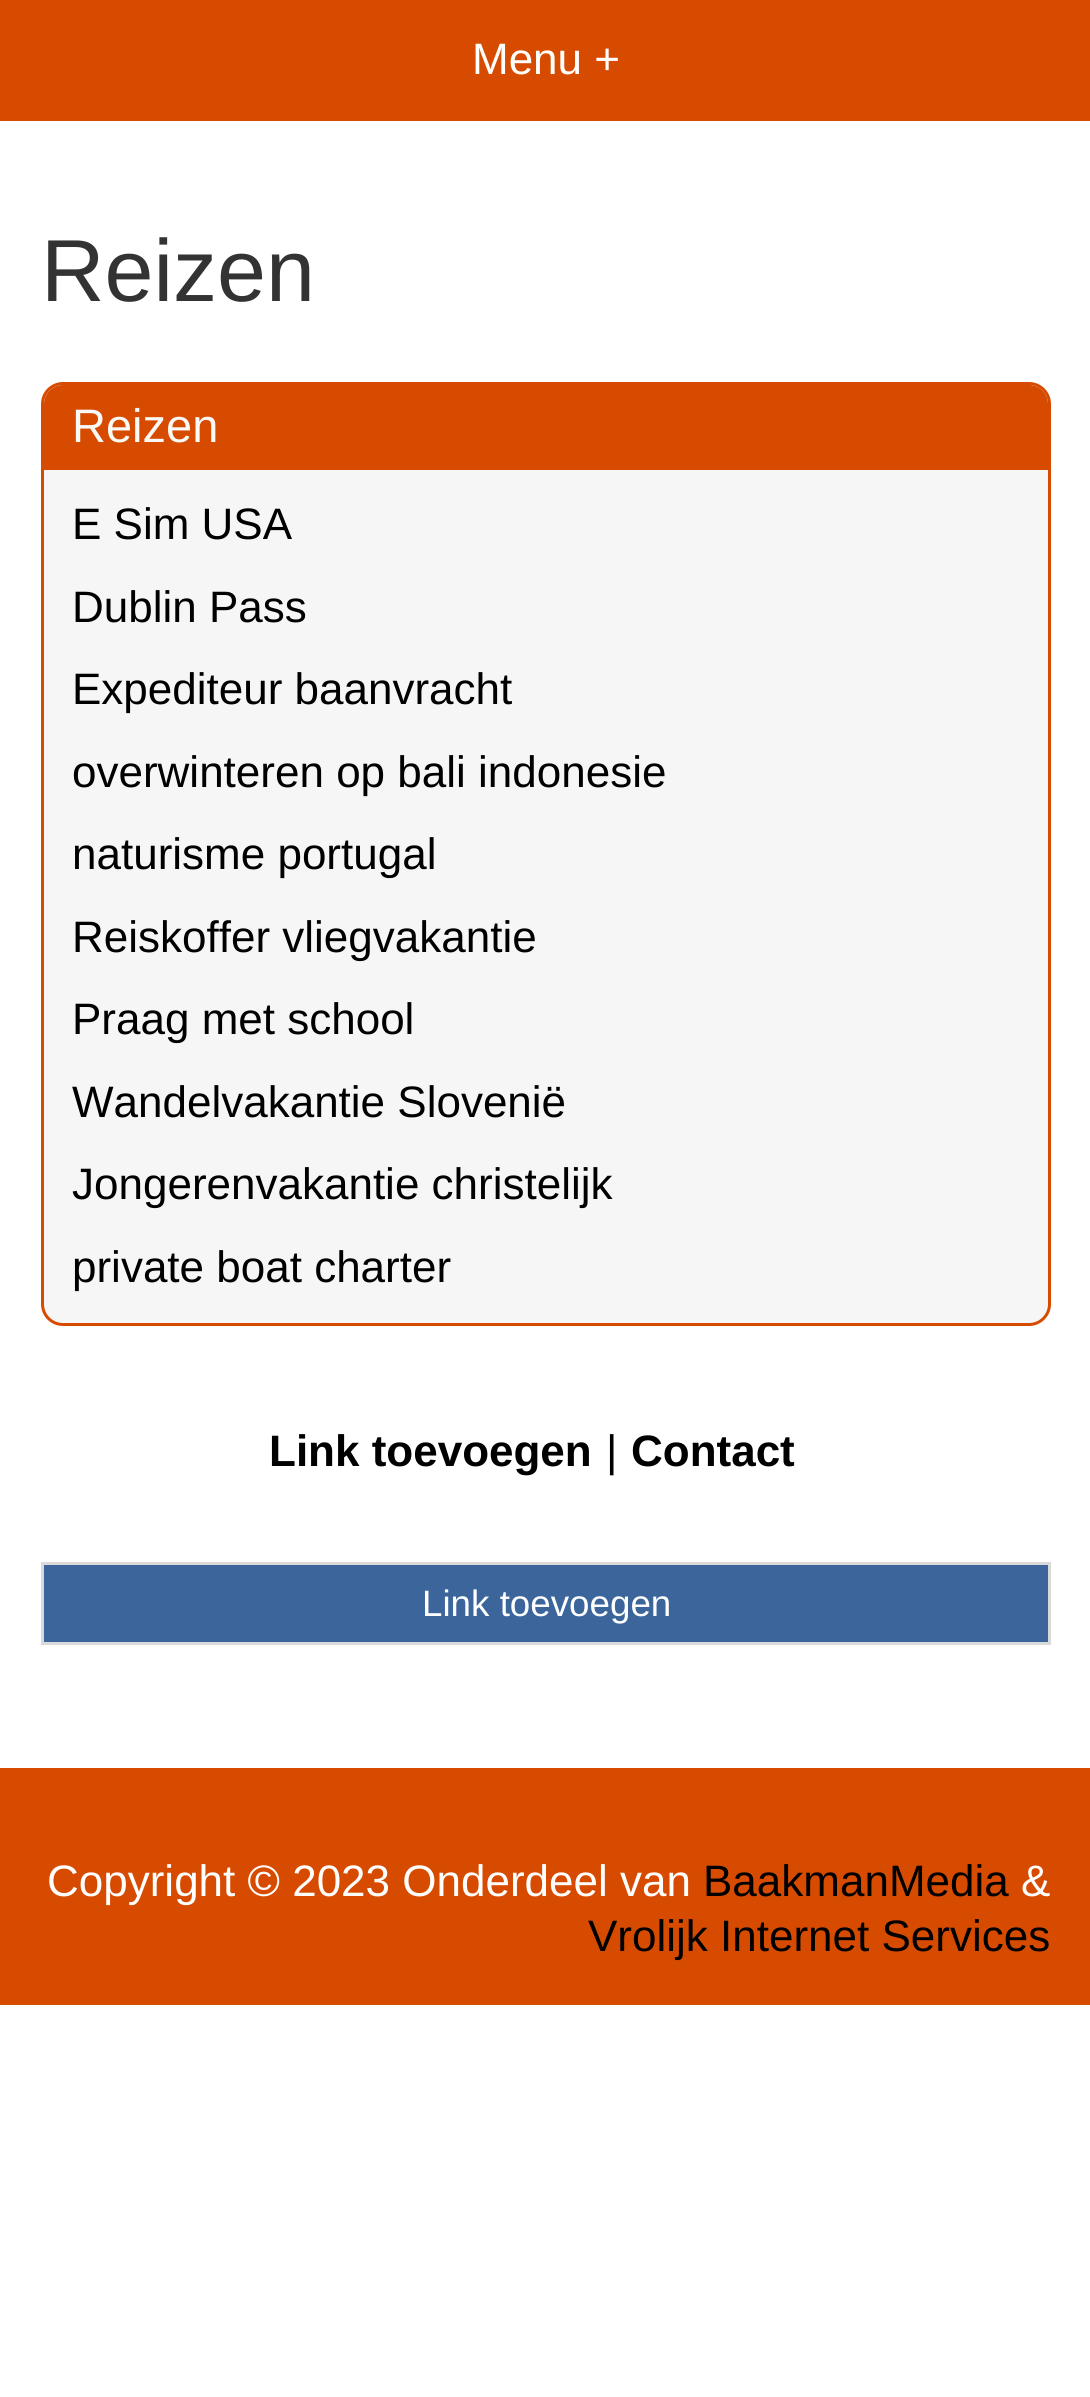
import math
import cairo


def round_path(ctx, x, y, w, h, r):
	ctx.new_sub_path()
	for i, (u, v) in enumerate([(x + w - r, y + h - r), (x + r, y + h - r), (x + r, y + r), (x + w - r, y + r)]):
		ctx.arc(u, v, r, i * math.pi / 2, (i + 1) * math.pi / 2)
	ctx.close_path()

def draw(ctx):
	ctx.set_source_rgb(1, 1, 1)
	ctx.paint()
	ctx.set_source_rgb(0.839, 0.294, 0)
	ctx.rectangle(0, 0, 1090, 121)
	ctx.fill()
	ctx.select_font_face('Liberation Sans')
	ctx.set_font_size(44)
	ctx.set_source_rgb(1, 1, 1)
	ctx.move_to(472, 74)
	ctx.show_text('Menu +')
	ctx.set_font_size(88)
	ctx.set_source_rgb(0.2, 0.2, 0.2)
	ctx.move_to(41, 301)
	ctx.show_text('Reizen')
	ctx.set_source_rgb(0.961, 0.961, 0.961)
	round_path(ctx, 42.5, 383.5, 1007, 941, 20.5)
	ctx.fill_preserve()
	ctx.set_source_rgb(0.839, 0.294, 0)
	ctx.set_line_width(3)
	ctx.stroke()
	ctx.new_path()
	ctx.move_to(63, 385)
	ctx.line_to(1029, 385)
	ctx.curve_to(1039.5, 385, 1048, 393.5, 1048, 404)
	ctx.line_to(1048, 470)
	ctx.line_to(44, 470)
	ctx.line_to(44, 404)
	ctx.curve_to(44, 393.5, 52.5, 385, 63, 385)
	ctx.close_path()
	ctx.fill()
	ctx.set_font_size(47)
	ctx.set_source_rgb(0.973, 0.973, 0.969)
	ctx.move_to(72, 442)
	ctx.show_text('Reizen')
	ctx.set_font_size(44)
	ctx.set_source_rgb(0, 0, 0)
	for x, y, s in [
		(72, 539, 'E Sim USA'),
		(72, 622, 'Dublin Pass'),
		(72, 704, 'Expediteur baanvracht'),
		(72, 787, 'overwinteren op bali indonesie'),
		(72, 869, 'naturisme portugal'),
		(72, 952, 'Reiskoffer vliegvakantie'),
		(72, 1034, 'Praag met school'),
		(72, 1117, 'Wandelvakantie Slovenië'),
		(72, 1199, 'Jongerenvakantie christelijk'),
		(72, 1282, 'private boat charter'),
	]:
		ctx.move_to(x, y)
		ctx.show_text(s)
	ctx.select_font_face('Liberation Sans', cairo.FONT_SLANT_NORMAL, cairo.FONT_WEIGHT_BOLD)
	ctx.move_to(269, 1466)
	ctx.show_text('Link toevoegen')
	ctx.select_font_face('Liberation Sans')
	ctx.move_to(606, 1466)
	ctx.show_text('|')
	ctx.select_font_face('Liberation Sans', cairo.FONT_SLANT_NORMAL, cairo.FONT_WEIGHT_BOLD)
	ctx.move_to(631, 1466)
	ctx.show_text('Contact')
	ctx.set_source_rgb(0.231, 0.396, 0.608)
	ctx.rectangle(42.5, 1563.5, 1007, 80)
	ctx.fill_preserve()
	ctx.set_source_rgb(0.855, 0.855, 0.855)
	ctx.stroke()
	ctx.select_font_face('Liberation Sans')
	ctx.set_font_size(36.75)
	ctx.set_source_rgb(1, 1, 1)
	ctx.move_to(422, 1616)
	ctx.show_text('Link toevoegen')
	ctx.set_source_rgb(0.839, 0.294, 0)
	ctx.rectangle(0, 1768, 1090, 237)
	ctx.fill()
	ctx.set_font_size(44)
	ctx.set_source_rgb(1, 1, 1)
	ctx.move_to(47, 1896)
	ctx.show_text('Copyright © 2023 Onderdeel van')
	ctx.set_source_rgb(0, 0, 0)
	ctx.move_to(703, 1896)
	ctx.show_text('BaakmanMedia')
	ctx.set_source_rgb(1, 1, 1)
	ctx.move_to(1021, 1896)
	ctx.show_text('&')
	ctx.set_source_rgb(0, 0, 0)
	ctx.move_to(588, 1951)
	ctx.show_text('Vrolijk Internet Services')


surface = cairo.ImageSurface(cairo.FORMAT_RGB24, 1090, 2397)
ctx = cairo.Context(surface)
options = cairo.FontOptions()
options.set_hint_metrics(cairo.HINT_METRICS_OFF)
options.set_hint_style(cairo.HINT_STYLE_NONE)
ctx.set_font_options(options)
ctx.set_miter_limit(4)
draw(ctx)
surface.write_to_png('image.png')
